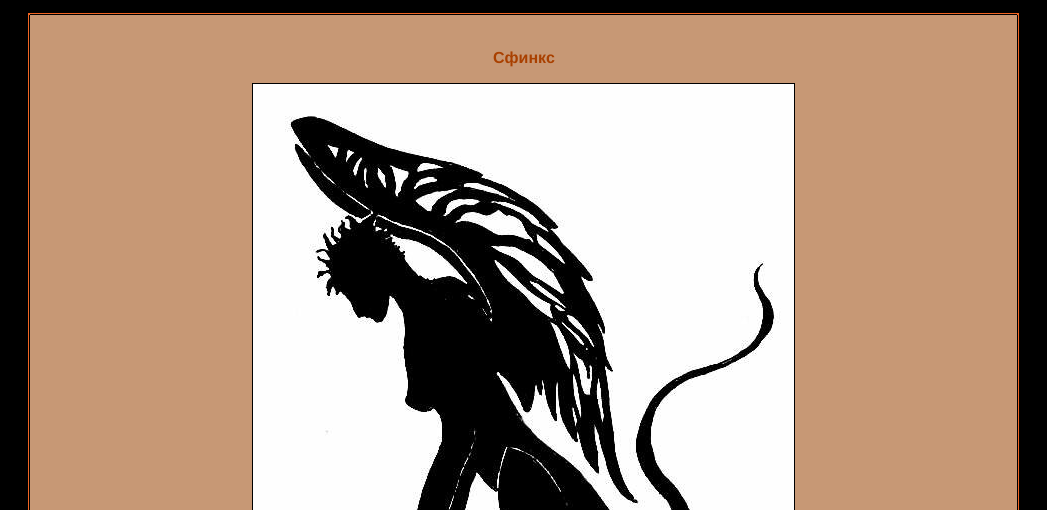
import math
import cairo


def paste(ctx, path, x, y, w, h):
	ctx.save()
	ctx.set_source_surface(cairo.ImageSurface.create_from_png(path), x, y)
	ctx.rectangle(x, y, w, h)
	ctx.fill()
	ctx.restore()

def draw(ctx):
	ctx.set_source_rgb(0, 0, 0)
	ctx.paint()
	ctx.set_source_rgb(0.945, 0.396, 0.133)
	ctx.rectangle(28, 13, 991, 1)
	ctx.rectangle(28, 14, 2, 1)
	ctx.rectangle(1017, 14, 2, 1)
	ctx.rectangle(28, 15, 1, 495)
	ctx.fill()
	ctx.set_source_rgb(0.78, 0.596, 0.459)
	ctx.rectangle(30, 15, 987, 495)
	ctx.fill()
	ctx.select_font_face('Liberation Sans', cairo.FONT_SLANT_NORMAL, cairo.FONT_WEIGHT_BOLD)
	ctx.set_font_size(16)
	ctx.set_source_rgb(0.663, 0.251, 0)
	ctx.move_to(493, 63)
	ctx.show_text('Сфинкс')
	ctx.rectangle(252.5, 83.5, 542, 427)
	ctx.set_source_rgb(0, 0, 0)
	ctx.set_line_width(1)
	ctx.stroke()
	paste(ctx, 'media/1.png', 253, 84, 541, 426)
	ctx.set_source_rgb(0.945, 0.396, 0.133)
	ctx.rectangle(1018, 15, 1, 495)
	ctx.fill()


surface = cairo.ImageSurface(cairo.FORMAT_RGB24, 1047, 510)
ctx = cairo.Context(surface)
options = cairo.FontOptions()
options.set_hint_metrics(cairo.HINT_METRICS_OFF)
options.set_hint_style(cairo.HINT_STYLE_NONE)
ctx.set_font_options(options)
ctx.set_miter_limit(4)
draw(ctx)
surface.write_to_png('image.png')
